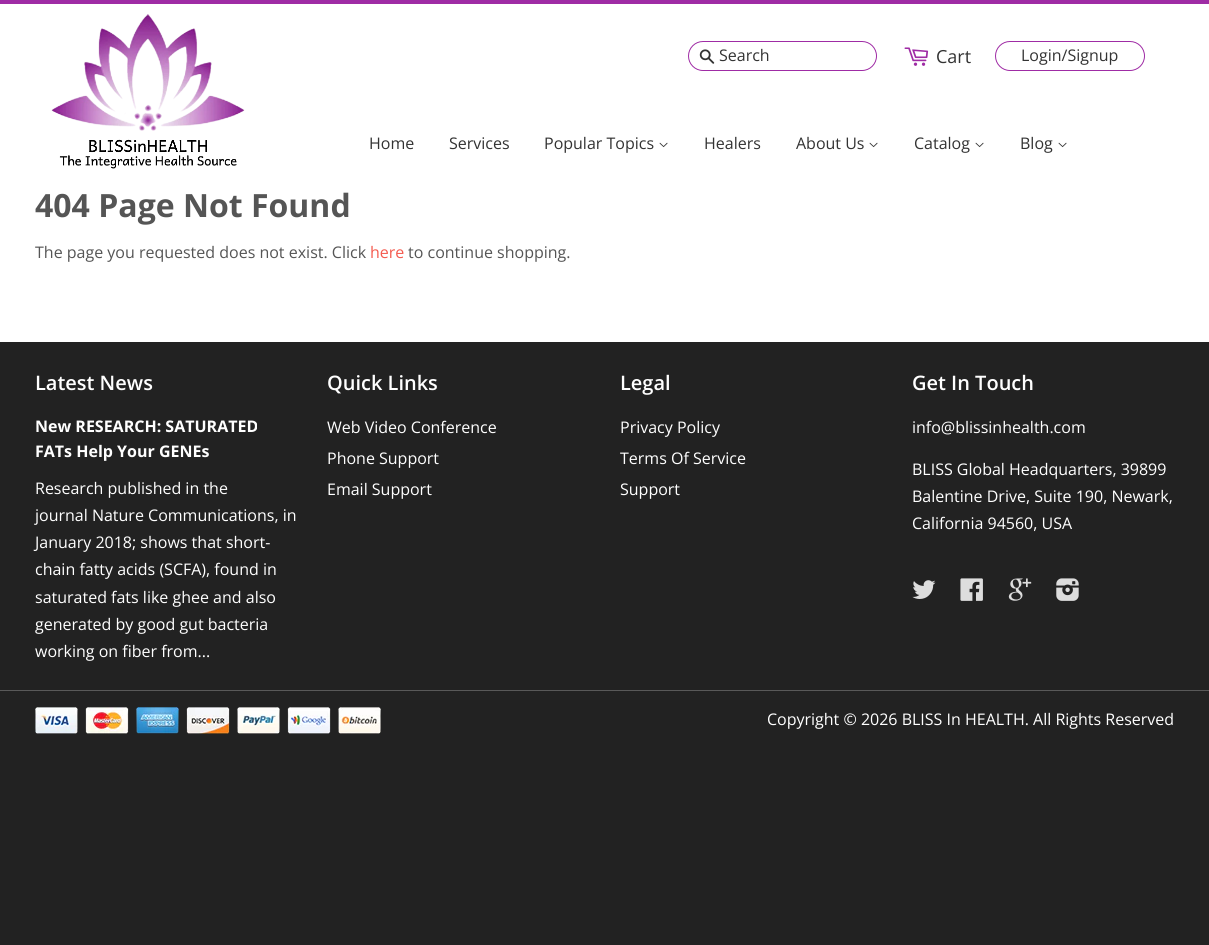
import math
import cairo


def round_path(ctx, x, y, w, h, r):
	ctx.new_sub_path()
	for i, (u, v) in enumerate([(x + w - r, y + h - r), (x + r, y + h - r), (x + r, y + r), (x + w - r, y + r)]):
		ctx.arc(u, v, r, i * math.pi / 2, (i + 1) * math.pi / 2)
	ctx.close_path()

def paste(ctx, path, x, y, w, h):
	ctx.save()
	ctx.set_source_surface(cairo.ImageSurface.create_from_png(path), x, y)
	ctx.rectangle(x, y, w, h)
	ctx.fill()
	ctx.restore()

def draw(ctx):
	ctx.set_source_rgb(0.133, 0.133, 0.133)
	ctx.paint()
	ctx.set_source_rgb(1, 1, 1)
	ctx.rectangle(0, 4, 1209, 338)
	ctx.fill()
	ctx.set_source_rgb(0.624, 0.173, 0.647)
	ctx.rectangle(0, 0, 1209, 4)
	ctx.fill()
	paste(ctx, 'media/1.png', 51, 14, 194, 155)
	round_path(ctx, 688.5, 41.5, 188, 29, 14.5)
	ctx.set_line_width(1)
	ctx.stroke()
	paste(ctx, 'media/2.png', 699, 49, 16, 15)
	ctx.select_font_face('Open Sans')
	ctx.set_font_size(16)
	ctx.set_source_rgb(0.2, 0.2, 0.2)
	ctx.move_to(719, 61)
	ctx.show_text('Search')
	paste(ctx, 'media/3.png', 904, 47, 25, 19)
	ctx.set_font_size(18)
	ctx.move_to(936, 63)
	ctx.show_text('Cart')
	round_path(ctx, 995.5, 41.5, 149, 29, 14.5)
	ctx.set_source_rgb(0.624, 0.173, 0.647)
	ctx.stroke()
	ctx.set_font_size(16)
	ctx.set_source_rgb(0.2, 0.2, 0.2)
	for x, y, s in [
		(1021, 61, 'Login/Signup'),
		(369, 149, 'Home'),
		(449, 149, 'Services'),
		(544, 149, 'Popular Topics'),
	]:
		ctx.move_to(x, y)
		ctx.show_text(s)
	paste(ctx, 'media/4.png', 659, 142, 9, 6)
	ctx.move_to(704, 149)
	ctx.show_text('Healers')
	ctx.move_to(796, 149)
	ctx.show_text('About Us')
	paste(ctx, 'media/4.png', 869, 142, 9, 6)
	ctx.move_to(914, 149)
	ctx.show_text('Catalog')
	paste(ctx, 'media/4.png', 975, 142, 9, 6)
	ctx.move_to(1020, 149)
	ctx.show_text('Blog')
	paste(ctx, 'media/4.png', 1058, 142, 9, 6)
	ctx.select_font_face('Open Sans', cairo.FONT_SLANT_NORMAL, cairo.FONT_WEIGHT_BOLD)
	ctx.set_font_size(32)
	ctx.set_source_rgb(0.333, 0.333, 0.333)
	ctx.move_to(35, 217)
	ctx.show_text('404 Page Not Found')
	ctx.select_font_face('Open Sans')
	ctx.set_font_size(16)
	ctx.move_to(35, 258)
	ctx.show_text('The page you requested does not exist. Click')
	ctx.set_source_rgb(0.957, 0.357, 0.31)
	ctx.move_to(370, 258)
	ctx.show_text('here')
	ctx.set_source_rgb(0.333, 0.333, 0.333)
	ctx.move_to(408, 258)
	ctx.show_text('to continue shopping.')
	ctx.select_font_face('Open Sans SemiBold')
	ctx.set_font_size(20)
	ctx.set_source_rgb(1, 1, 1)
	ctx.move_to(35, 390)
	ctx.show_text('Latest News')
	ctx.select_font_face('Open Sans', cairo.FONT_SLANT_NORMAL, cairo.FONT_WEIGHT_BOLD)
	ctx.set_font_size(16)
	ctx.move_to(35, 432)
	ctx.show_text('New RESEARCH: SATURATED')
	ctx.move_to(35, 457)
	ctx.show_text('FATs Help Your GENEs')
	ctx.select_font_face('Open Sans')
	for x, y, s in [
		(35, 494, 'Research published in the'),
		(35, 521, 'journal Nature Communications, in'),
		(35, 548, 'January 2018; shows that short-'),
		(35, 575, 'chain fatty acids (SCFA), found in'),
		(35, 603, 'saturated fats like ghee and also'),
		(35, 630, 'generated by good gut bacteria'),
		(35, 657, 'working on fiber from...'),
	]:
		ctx.move_to(x, y)
		ctx.show_text(s)
	ctx.select_font_face('Open Sans SemiBold')
	ctx.set_font_size(20)
	ctx.move_to(327, 390)
	ctx.show_text('Quick Links')
	ctx.select_font_face('Open Sans')
	ctx.set_font_size(16)
	for x, y, s in [
		(327, 433, 'Web Video Conference'),
		(327, 464, 'Phone Support'),
		(327, 495, 'Email Support'),
	]:
		ctx.move_to(x, y)
		ctx.show_text(s)
	ctx.select_font_face('Open Sans SemiBold')
	ctx.set_font_size(20)
	ctx.move_to(620, 390)
	ctx.show_text('Legal')
	ctx.select_font_face('Open Sans')
	ctx.set_font_size(16)
	for x, y, s in [
		(620, 433, 'Privacy Policy'),
		(620, 464, 'Terms Of Service'),
		(620, 495, 'Support'),
	]:
		ctx.move_to(x, y)
		ctx.show_text(s)
	ctx.select_font_face('Open Sans SemiBold')
	ctx.set_font_size(20)
	ctx.move_to(912, 390)
	ctx.show_text('Get In Touch')
	ctx.select_font_face('Open Sans')
	ctx.set_font_size(16)
	for x, y, s in [
		(912, 433, 'info@blissinhealth.com'),
		(912, 475, 'BLISS Global Headquarters, 39899'),
		(912, 502, 'Balentine Drive, Suite 190, Newark,'),
		(912, 529, 'California 94560, USA'),
	]:
		ctx.move_to(x, y)
		ctx.show_text(s)
	paste(ctx, 'media/5.png', 912, 580, 24, 19)
	paste(ctx, 'media/6.png', 960, 578, 23, 23)
	paste(ctx, 'media/7.png', 1008, 578, 24, 23)
	paste(ctx, 'media/8.png', 1056, 578, 23, 23)
	ctx.set_source_rgb(0.349, 0.349, 0.349)
	ctx.rectangle(0, 690, 1209, 1)
	ctx.fill()
	paste(ctx, 'media/9.png', 35, 707, 346, 27)
	ctx.set_source_rgb(1, 1, 1)
	ctx.move_to(767, 725)
	ctx.show_text('Copyright © 2026 BLISS In HEALTH. All Rights Reserved')


surface = cairo.ImageSurface(cairo.FORMAT_RGB24, 1209, 945)
ctx = cairo.Context(surface)
options = cairo.FontOptions()
options.set_hint_metrics(cairo.HINT_METRICS_OFF)
options.set_hint_style(cairo.HINT_STYLE_NONE)
ctx.set_font_options(options)
ctx.set_miter_limit(4)
draw(ctx)
surface.write_to_png('image.png')
